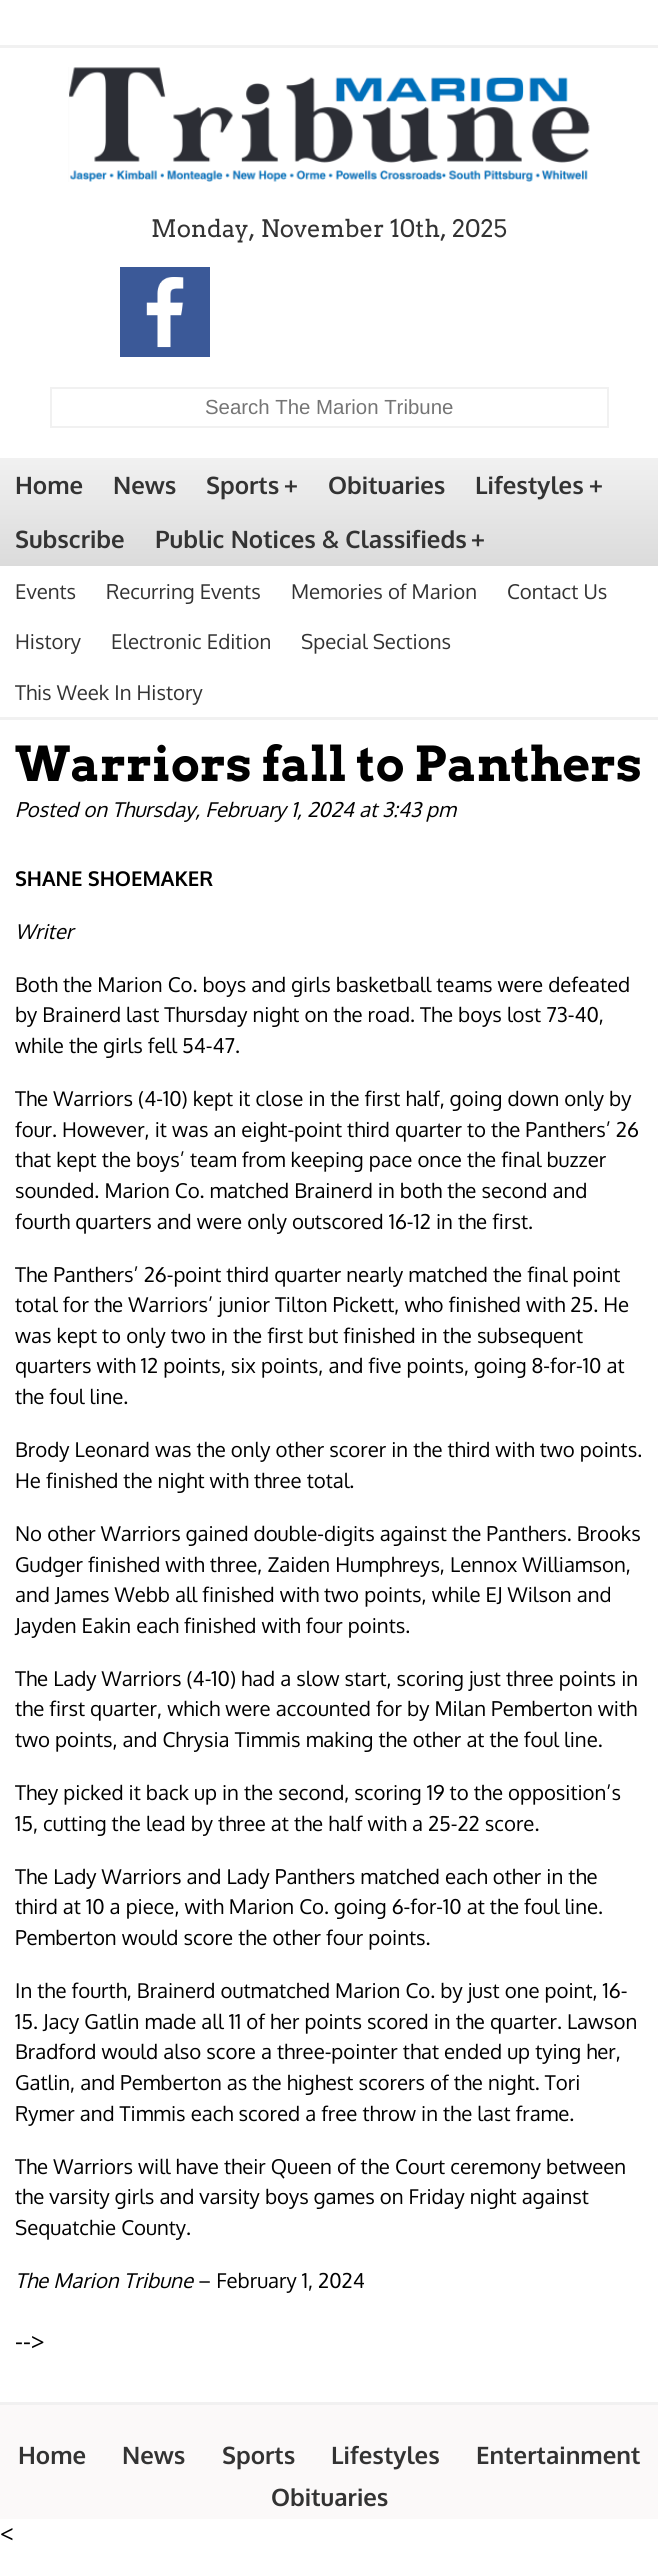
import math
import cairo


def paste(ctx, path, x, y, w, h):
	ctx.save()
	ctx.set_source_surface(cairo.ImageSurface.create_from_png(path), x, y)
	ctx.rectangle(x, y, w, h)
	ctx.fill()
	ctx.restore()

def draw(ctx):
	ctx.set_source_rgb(1, 1, 1)
	ctx.paint()
	ctx.set_source_rgb(0.945, 0.945, 0.945)
	ctx.rectangle(0, 45, 658, 3)
	ctx.fill()
	paste(ctx, 'media/1.png', 68, 67, 522, 115)
	ctx.select_font_face('Arvo')
	ctx.set_font_size(24)
	ctx.set_source_rgb(0.2, 0.2, 0.2)
	ctx.move_to(151, 237)
	ctx.show_text('Monday, November 10th, 2025')
	paste(ctx, 'media/2.png', 120, 267, 90, 90)
	ctx.rectangle(51, 388, 557, 39)
	ctx.set_source_rgb(0.945, 0.945, 0.945)
	ctx.stroke()
	ctx.select_font_face('Liberation Sans')
	ctx.set_font_size(20.4)
	ctx.set_source_rgb(0.459, 0.459, 0.459)
	ctx.move_to(205, 414)
	ctx.show_text('Search The Marion Tribune')
	gradient = cairo.LinearGradient(329, 458, 329, 566)
	gradient.add_color_stop_rgba(0, 0.945, 0.945, 0.945, 1)
	gradient.add_color_stop_rgba(1, 0.859, 0.859, 0.859, 1)
	ctx.set_source(gradient)
	ctx.rectangle(0, 458, 658, 108)
	ctx.fill()
	ctx.select_font_face('Oxygen', cairo.FONT_SLANT_NORMAL, cairo.FONT_WEIGHT_BOLD)
	ctx.set_font_size(24)
	ctx.set_source_rgb(0.2, 0.2, 0.2)
	for x, y, s in [
		(15, 494, 'Home'),
		(113, 494, 'News'),
		(206, 494, 'Sports'),
		(284, 494, '+'),
		(328, 494, 'Obituaries'),
		(475, 494, 'Lifestyles'),
		(589, 494, '+'),
		(15, 548, 'Subscribe'),
		(155, 548, 'Public Notices & Classifieds'),
		(471, 548, '+'),
	]:
		ctx.move_to(x, y)
		ctx.show_text(s)
	ctx.set_source_rgb(0.945, 0.945, 0.945)
	ctx.rectangle(0, 717, 658, 3)
	ctx.fill()
	ctx.select_font_face('Oxygen')
	ctx.set_font_size(20.4)
	ctx.set_source_rgb(0.2, 0.2, 0.2)
	for x, y, s in [
		(15, 599, 'Events'),
		(106, 599, 'Recurring Events'),
		(291, 599, 'Memories of Marion'),
		(507, 599, 'Contact Us'),
		(15, 649, 'History'),
		(111, 649, 'Electronic Edition'),
		(301, 649, 'Special Sections'),
		(15, 700, 'This Week In History'),
	]:
		ctx.move_to(x, y)
		ctx.show_text(s)
	ctx.select_font_face('Arvo', cairo.FONT_SLANT_NORMAL, cairo.FONT_WEIGHT_BOLD)
	ctx.set_font_size(48)
	ctx.set_source_rgb(0, 0, 0)
	ctx.move_to(15, 781)
	ctx.show_text('Warriors fall to Panthers')
	ctx.select_font_face('Oxygen', cairo.FONT_SLANT_ITALIC)
	ctx.set_font_size(20.4)
	ctx.move_to(15, 817)
	ctx.show_text('Posted on Thursday, February 1, 2024 at 3:43 pm')
	ctx.select_font_face('Oxygen', cairo.FONT_SLANT_NORMAL, cairo.FONT_WEIGHT_BOLD)
	ctx.move_to(15, 886)
	ctx.show_text('SHANE SHOEMAKER')
	ctx.select_font_face('Oxygen', cairo.FONT_SLANT_ITALIC)
	ctx.move_to(15, 939)
	ctx.show_text('Writer')
	ctx.select_font_face('Oxygen')
	for x, y, s in [
		(15, 992, 'Both the Marion Co. boys and girls basketball teams were defeated'),
		(15, 1022, 'by Brainerd last Thursday night on the road. The boys lost 73-40,'),
		(15, 1053, 'while the girls fell 54-47.'),
		(15, 1106, 'The Warriors (4-10) kept it close in the first half, going down only by'),
		(15, 1137, 'four. However, it was an eight-point third quarter to the Panthers’ 26'),
		(15, 1167, 'that kept the boys’ team from keeping pace once the final buzzer'),
		(15, 1198, 'sounded. Marion Co. matched Brainerd in both the second and'),
		(15, 1229, 'fourth quarters and were only outscored 16-12 in the first.'),
		(15, 1282, 'The Panthers’ 26-point third quarter nearly matched the final point'),
		(15, 1312, 'total for the Warriors’ junior Tilton Pickett, who finished with 25. He'),
		(15, 1343, 'was kept to only two in the first but finished in the subsequent'),
		(15, 1373, 'quarters with 12 points, six points, and five points, going 8-for-10 at'),
		(15, 1404, 'the foul line.'),
		(15, 1457, 'Brody Leonard was the only other scorer in the third with two points.'),
		(15, 1488, 'He finished the night with three total.'),
		(15, 1541, 'No other Warriors gained double-digits against the Panthers. Brooks'),
		(15, 1572, 'Gudger finished with three, Zaiden Humphreys, Lennox Williamson,'),
		(15, 1602, 'and James Webb all finished with two points, while EJ Wilson and'),
		(15, 1633, 'Jayden Eakin each finished with four points.'),
		(15, 1686, 'The Lady Warriors (4-10) had a slow start, scoring just three points in'),
		(15, 1716, 'the first quarter, which were accounted for by Milan Pemberton with'),
		(15, 1747, 'two points, and Chrysia Timmis making the other at the foul line.'),
		(15, 1800, 'They picked it back up in the second, scoring 19 to the opposition’s'),
		(15, 1831, '15, cutting the lead by three at the half with a 25-22 score.'),
		(15, 1884, 'The Lady Warriors and Lady Panthers matched each other in the'),
		(15, 1914, 'third at 10 a piece, with Marion Co. going 6-for-10 at the foul line.'),
		(15, 1945, 'Pemberton would score the other four points.'),
		(15, 1998, 'In the fourth, Brainerd outmatched Marion Co. by just one point, 16-'),
		(15, 2029, '15. Jacy Gatlin made all 11 of her points scored in the quarter. Lawson'),
		(15, 2059, 'Bradford would also score a three-pointer that ended up tying her,'),
		(15, 2090, 'Gatlin, and Pemberton as the highest scorers of the night. Tori'),
		(15, 2121, 'Rymer and Timmis each scored a free throw in the last frame.'),
		(15, 2174, 'The Warriors will have their Queen of the Court ceremony between'),
		(15, 2204, 'the varsity girls and varsity boys games on Friday night against'),
		(15, 2235, 'Sequatchie County.'),
	]:
		ctx.move_to(x, y)
		ctx.show_text(s)
	ctx.select_font_face('Oxygen', cairo.FONT_SLANT_ITALIC)
	ctx.move_to(15, 2288)
	ctx.show_text('The Marion Tribune')
	ctx.select_font_face('Oxygen')
	ctx.move_to(198, 2288)
	ctx.show_text('– February 1, 2024')
	ctx.set_font_size(24)
	ctx.move_to(15, 2350)
	ctx.show_text('-->')
	ctx.set_source_rgb(0.984, 0.976, 0.976)
	ctx.rectangle(0, 2405, 658, 114)
	ctx.fill()
	ctx.set_source_rgb(0.945, 0.945, 0.945)
	ctx.rectangle(0, 2402, 658, 3)
	ctx.fill()
	ctx.select_font_face('Oxygen', cairo.FONT_SLANT_NORMAL, cairo.FONT_WEIGHT_BOLD)
	ctx.set_source_rgb(0.2, 0.2, 0.2)
	for x, y, s in [
		(18, 2464, 'Home'),
		(122, 2464, 'News'),
		(222, 2464, 'Sports'),
		(331, 2464, 'Lifestyles'),
		(476, 2464, 'Entertainment'),
		(271, 2506, 'Obituaries'),
	]:
		ctx.move_to(x, y)
		ctx.show_text(s)
	ctx.select_font_face('Oxygen')
	ctx.set_source_rgb(0, 0, 0)
	ctx.move_to(0, 2542)
	ctx.show_text('<')


surface = cairo.ImageSurface(cairo.FORMAT_RGB24, 658, 2561)
ctx = cairo.Context(surface)
options = cairo.FontOptions()
options.set_hint_metrics(cairo.HINT_METRICS_OFF)
options.set_hint_style(cairo.HINT_STYLE_NONE)
ctx.set_font_options(options)
ctx.set_miter_limit(4)
draw(ctx)
surface.write_to_png('image.png')
